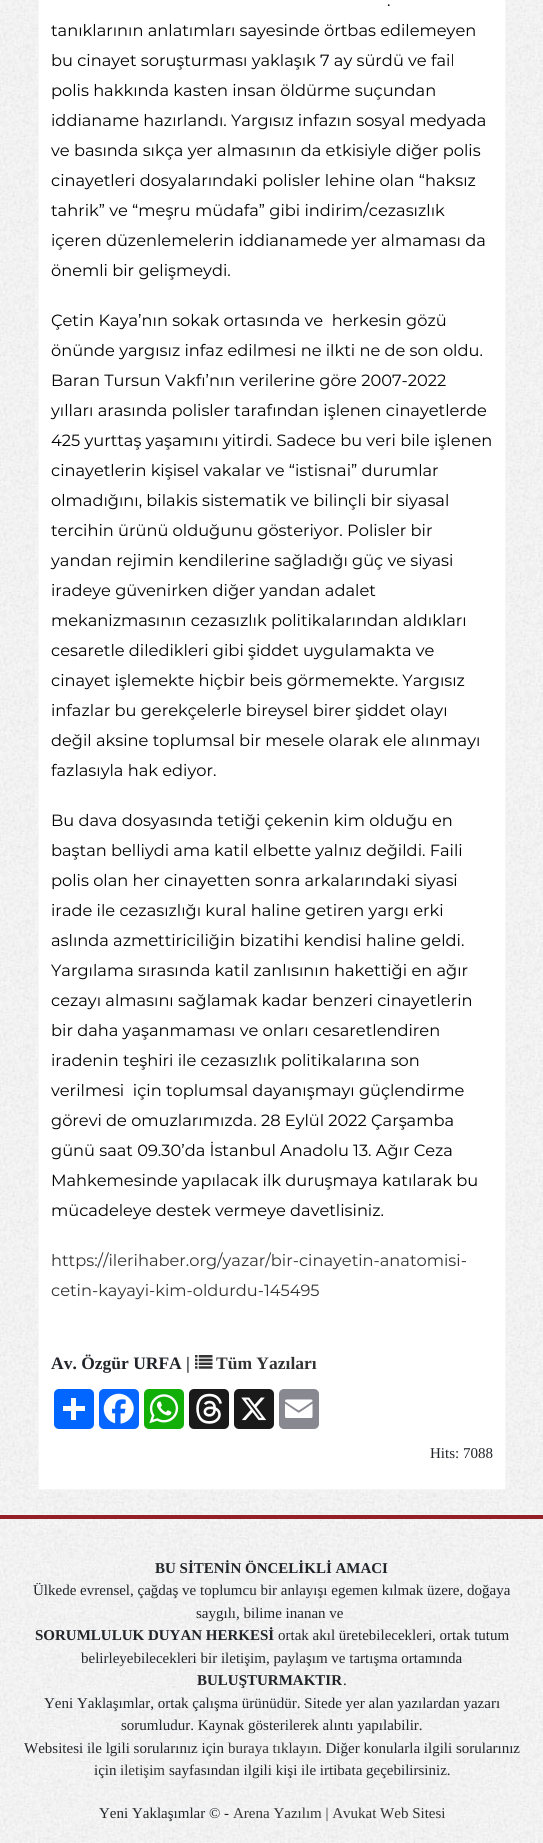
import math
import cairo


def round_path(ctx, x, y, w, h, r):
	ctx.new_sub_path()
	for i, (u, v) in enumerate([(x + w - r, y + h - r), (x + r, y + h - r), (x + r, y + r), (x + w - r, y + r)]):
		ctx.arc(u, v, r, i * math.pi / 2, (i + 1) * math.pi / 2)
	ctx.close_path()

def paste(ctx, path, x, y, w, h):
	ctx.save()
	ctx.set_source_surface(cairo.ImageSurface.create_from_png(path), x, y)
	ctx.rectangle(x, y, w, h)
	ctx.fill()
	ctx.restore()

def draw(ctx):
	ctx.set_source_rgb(1, 1, 1)
	ctx.paint()
	paste(ctx, 'media/1.png', 0, 0, 543, 1515)
	ctx.set_source_rgb(1, 1, 1)
	ctx.rectangle(38.5, -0.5, 467, 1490)
	ctx.fill_preserve()
	ctx.set_source_rgb(0.961, 0.961, 0.961)
	ctx.set_line_width(1)
	ctx.stroke()
	ctx.select_font_face('Montserrat')
	ctx.set_font_size(16.25)
	ctx.set_source_rgb(0, 0, 0)
	for x, y, s in [
		(387, 6, '.'),
		(51, 36, 'tanıklarının anlatımları sayesinde örtbas edilemeyen'),
		(51, 66, 'bu cinayet soruşturması yaklaşık 7 ay sürdü ve fail'),
		(51, 96, 'polis hakkında kasten insan öldürme suçundan'),
		(51, 126, 'iddianame hazırlandı. Yargısız infazın sosyal medyada'),
		(51, 156, 've basında sıkça yer almasının da etkisiyle diğer polis'),
		(51, 186, 'cinayetleri dosyalarındaki polisler lehine olan “haksız'),
		(51, 216, 'tahrik” ve “meşru müdafa” gibi indirim/cezasızlık'),
		(51, 246, 'içeren düzenlemelerin iddianamede yer almaması da'),
		(51, 276, 'önemli bir gelişmeydi.'),
		(51, 326, 'Çetin Kaya’nın sokak ortasında ve  herkesin gözü'),
		(51, 356, 'önünde yargısız infaz edilmesi ne ilkti ne de son oldu.'),
		(51, 386, 'Baran Tursun Vakfı’nın verilerine göre 2007-2022'),
		(51, 416, 'yılları arasında polisler tarafından işlenen cinayetlerde'),
		(51, 446, '425 yurttaş yaşamını yitirdi. Sadece bu veri bile işlenen'),
		(51, 476, 'cinayetlerin kişisel vakalar ve “istisnai” durumlar'),
		(51, 506, 'olmadığını, bilakis sistematik ve bilinçli bir siyasal'),
		(51, 536, 'tercihin ürünü olduğunu gösteriyor. Polisler bir'),
		(51, 566, 'yandan rejimin kendilerine sağladığı güç ve siyasi'),
		(51, 596, 'iradeye güvenirken diğer yandan adalet'),
		(51, 626, 'mekanizmasının cezasızlık politikalarından aldıkları'),
		(51, 656, 'cesaretle diledikleri gibi şiddet uygulamakta ve'),
		(51, 686, 'cinayet işlemekte hiçbir beis görmemekte. Yargısız'),
		(51, 716, 'infazlar bu gerekçelerle bireysel birer şiddet olayı'),
		(51, 746, 'değil aksine toplumsal bir mesele olarak ele alınmayı'),
		(51, 776, 'fazlasıyla hak ediyor.'),
		(51, 826, 'Bu dava dosyasında tetiği çekenin kim olduğu en'),
		(51, 856, 'baştan belliydi ama katil elbette yalnız değildi. Faili'),
		(51, 886, 'polis olan her cinayetten sonra arkalarındaki siyasi'),
		(51, 916, 'irade ile cezasızlığı kural haline getiren yargı erki'),
		(51, 946, 'aslında azmettiriciliğin bizatihi kendisi haline geldi.'),
		(51, 976, 'Yargılama sırasında katil zanlısının hakettiği en ağır'),
		(51, 1006, 'cezayı almasını sağlamak kadar benzeri cinayetlerin'),
		(51, 1036, 'bir daha yaşanmaması ve onları cesaretlendiren'),
		(51, 1066, 'iradenin teşhiri ile cezasızlık politikalarına son'),
		(51, 1096, 'verilmesi  için toplumsal dayanışmayı güçlendirme'),
		(51, 1126, 'görevi de omuzlarımızda. 28 Eylül 2022 Çarşamba'),
		(51, 1156, 'günü saat 09.30’da İstanbul Anadolu 13. Ağır Ceza'),
		(51, 1186, 'Mahkemesinde yapılacak ilk duruşmaya katılarak bu'),
		(51, 1216, 'mücadeleye destek vermeye davetlisiniz.'),
	]:
		ctx.move_to(x, y)
		ctx.show_text(s)
	ctx.set_source_rgb(0.2, 0.2, 0.2)
	ctx.move_to(51, 1266)
	ctx.show_text('https://ilerihaber.org/yazar/bir-cinayetin-anatomisi-')
	ctx.move_to(51, 1296)
	ctx.show_text('cetin-kayayi-kim-oldurdu-145495')
	ctx.select_font_face('Liberation Serif', cairo.FONT_SLANT_NORMAL, cairo.FONT_WEIGHT_BOLD)
	ctx.set_font_size(17.5)
	ctx.set_source_rgb(0.129, 0.145, 0.161)
	ctx.move_to(51, 1369)
	ctx.show_text('Av. Özgür URFA |')
	paste(ctx, 'media/2.png', 195, 1355, 18, 14)
	ctx.set_source_rgb(0.2, 0.2, 0.2)
	ctx.move_to(216, 1369)
	ctx.show_text('Tüm Yazıları')
	ctx.set_source_rgb(0.004, 0.4, 1)
	round_path(ctx, 54, 1389, 40, 40, 5)
	ctx.fill()
	ctx.set_source_rgb(1, 1, 1)
	ctx.rectangle(71, 1398, 5, 22)
	ctx.fill()
	ctx.rectangle(63, 1406, 22, 5)
	ctx.fill()
	ctx.set_source_rgb(0.031, 0.4, 1)
	round_path(ctx, 99, 1389, 40, 40, 5)
	ctx.fill()
	paste(ctx, 'media/3.png', 103, 1393, 31, 31)
	ctx.set_source_rgb(0.071, 0.686, 0.039)
	round_path(ctx, 144, 1389, 40, 40, 5)
	ctx.fill()
	paste(ctx, 'media/4.png', 149, 1394, 30, 30)
	ctx.set_source_rgb(0.102, 0.102, 0.102)
	round_path(ctx, 189, 1389, 40, 40, 5)
	ctx.fill()
	paste(ctx, 'media/5.png', 196, 1393, 26, 31)
	round_path(ctx, 234, 1389, 40, 40, 5)
	ctx.fill()
	paste(ctx, 'media/6.png', 241, 1397, 26, 24)
	ctx.set_source_rgb(0.533, 0.537, 0.565)
	round_path(ctx, 279, 1389, 40, 40, 5)
	ctx.fill()
	paste(ctx, 'media/7.png', 285, 1399, 28, 19)
	ctx.select_font_face('Liberation Serif')
	ctx.set_font_size(15)
	ctx.set_source_rgb(0.129, 0.145, 0.161)
	ctx.move_to(430, 1458)
	ctx.show_text('Hits: 7088')
	paste(ctx, 'media/8.png', 0, 1514, 543, 329)
	ctx.set_source_rgb(0.58, 0.125, 0.153)
	ctx.rectangle(0, 1515, 543, 4)
	ctx.fill()
	ctx.select_font_face('Liberation Serif', cairo.FONT_SLANT_NORMAL, cairo.FONT_WEIGHT_BOLD)
	ctx.set_source_rgb(0.129, 0.145, 0.161)
	ctx.move_to(155, 1573)
	ctx.show_text('BU SİTENİN ÖNCELİKLİ AMACI')
	ctx.select_font_face('Liberation Serif')
	ctx.move_to(33, 1595)
	ctx.show_text('Ülkede evrensel, çağdaş ve toplumcu bir anlayışı egemen kılmak üzere, doğaya')
	ctx.move_to(196, 1618)
	ctx.show_text('saygılı, bilime inanan ve')
	ctx.select_font_face('Liberation Serif', cairo.FONT_SLANT_NORMAL, cairo.FONT_WEIGHT_BOLD)
	ctx.move_to(35, 1640)
	ctx.show_text('SORUMLULUK DUYAN HERKESİ')
	ctx.select_font_face('Liberation Serif')
	ctx.move_to(278, 1640)
	ctx.show_text('ortak akıl üretebilecekleri, ortak tutum')
	ctx.move_to(81, 1663)
	ctx.show_text('belirleyebilecekleri bir iletişim, paylaşım ve tartışma ortamında')
	ctx.select_font_face('Liberation Serif', cairo.FONT_SLANT_NORMAL, cairo.FONT_WEIGHT_BOLD)
	ctx.move_to(197, 1685)
	ctx.show_text('BULUŞTURMAKTIR')
	ctx.select_font_face('Liberation Serif')
	for x, y, s in [
		(343, 1685, '.'),
		(44, 1708, 'Yeni Yaklaşımlar, ortak çalışma ürünüdür. Sitede yer alan yazılardan yazarı'),
		(121, 1730, 'sorumludur. Kaynak gösterilerek alıntı yapılabilir.'),
		(24, 1753, 'Websitesi ile lgili sorularınız için'),
	]:
		ctx.move_to(x, y)
		ctx.show_text(s)
	ctx.set_source_rgb(0.2, 0.2, 0.2)
	ctx.move_to(228, 1753)
	ctx.show_text('buraya tıklayın')
	ctx.set_source_rgb(0.129, 0.145, 0.161)
	ctx.move_to(318, 1753)
	ctx.show_text('. Diğer konularla ilgili sorularınız')
	ctx.move_to(94, 1775)
	ctx.show_text('için')
	ctx.set_source_rgb(0.2, 0.2, 0.2)
	ctx.move_to(120, 1775)
	ctx.show_text('iletişim')
	ctx.set_source_rgb(0.129, 0.145, 0.161)
	ctx.move_to(169, 1775)
	ctx.show_text('sayfasından ilgili kişi ile irtibata geçebilirsiniz.')
	ctx.move_to(99, 1818)
	ctx.show_text('Yeni Yaklaşımlar © -')
	ctx.set_source_rgb(0.2, 0.2, 0.2)
	ctx.move_to(233, 1818)
	ctx.show_text('Arena Yazılım | Avukat Web Sitesi')


surface = cairo.ImageSurface(cairo.FORMAT_RGB24, 543, 1843)
ctx = cairo.Context(surface)
options = cairo.FontOptions()
options.set_hint_metrics(cairo.HINT_METRICS_OFF)
options.set_hint_style(cairo.HINT_STYLE_NONE)
ctx.set_font_options(options)
ctx.set_miter_limit(4)
draw(ctx)
surface.write_to_png('image.png')
